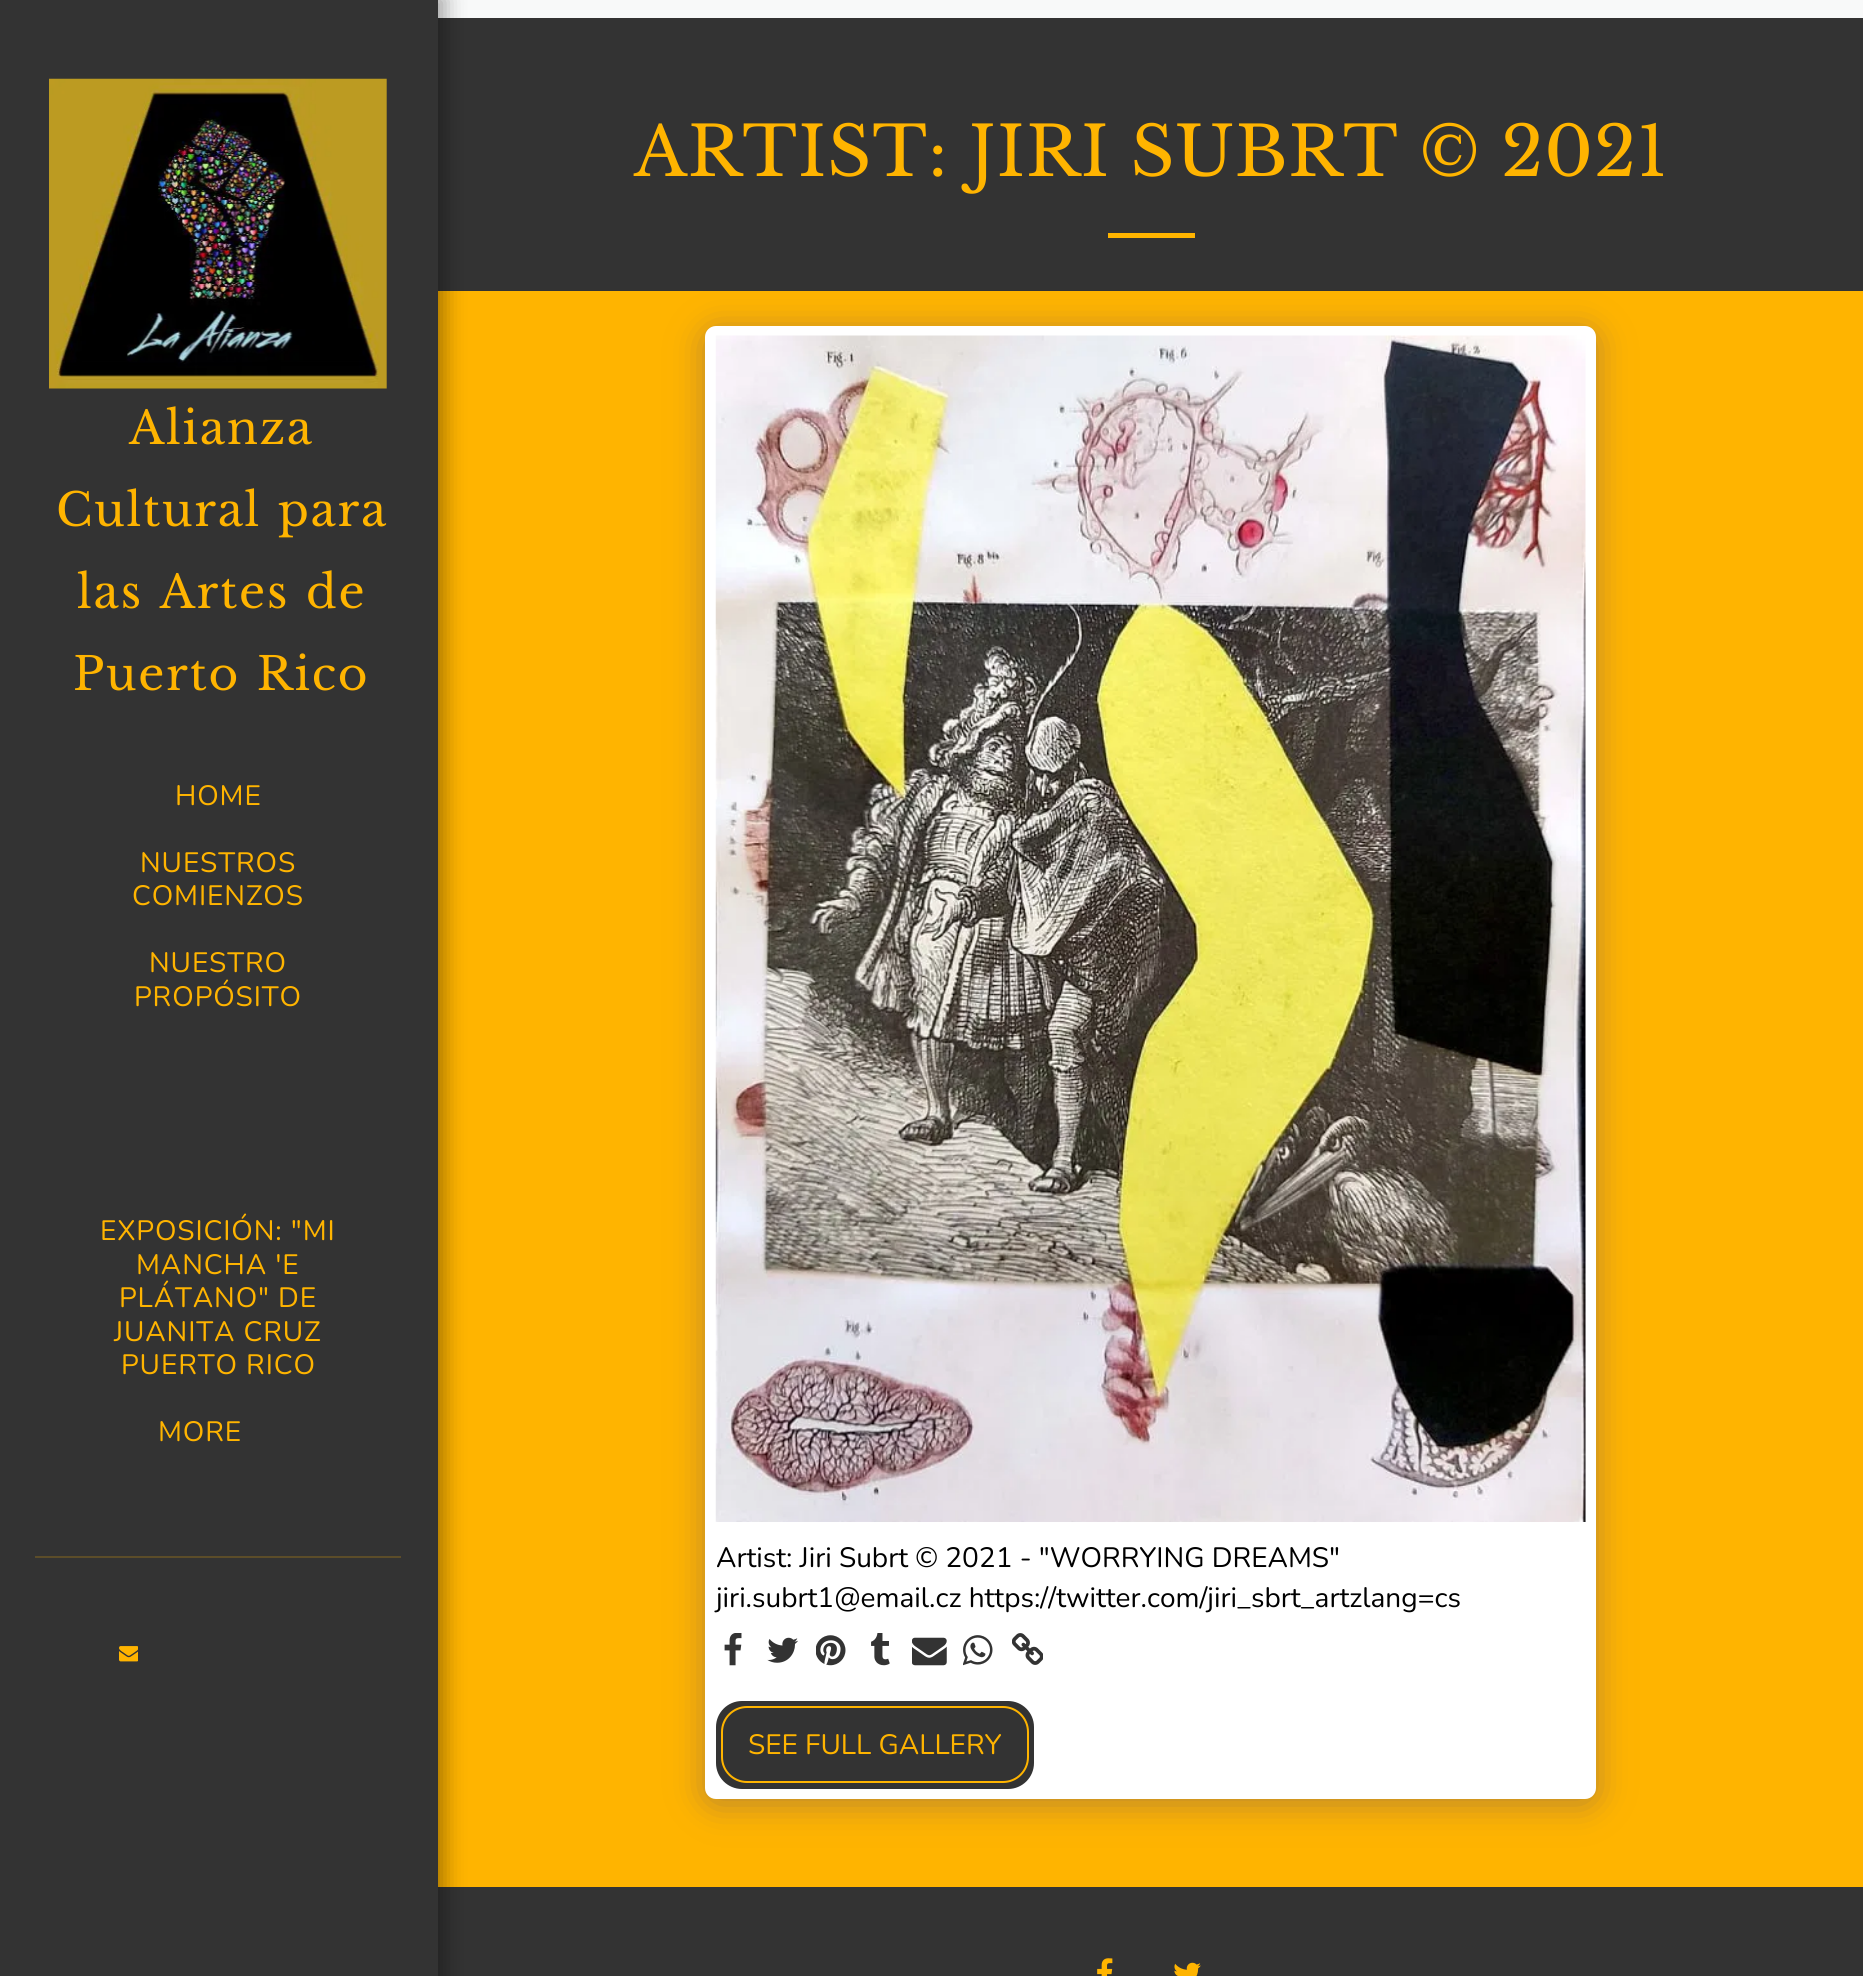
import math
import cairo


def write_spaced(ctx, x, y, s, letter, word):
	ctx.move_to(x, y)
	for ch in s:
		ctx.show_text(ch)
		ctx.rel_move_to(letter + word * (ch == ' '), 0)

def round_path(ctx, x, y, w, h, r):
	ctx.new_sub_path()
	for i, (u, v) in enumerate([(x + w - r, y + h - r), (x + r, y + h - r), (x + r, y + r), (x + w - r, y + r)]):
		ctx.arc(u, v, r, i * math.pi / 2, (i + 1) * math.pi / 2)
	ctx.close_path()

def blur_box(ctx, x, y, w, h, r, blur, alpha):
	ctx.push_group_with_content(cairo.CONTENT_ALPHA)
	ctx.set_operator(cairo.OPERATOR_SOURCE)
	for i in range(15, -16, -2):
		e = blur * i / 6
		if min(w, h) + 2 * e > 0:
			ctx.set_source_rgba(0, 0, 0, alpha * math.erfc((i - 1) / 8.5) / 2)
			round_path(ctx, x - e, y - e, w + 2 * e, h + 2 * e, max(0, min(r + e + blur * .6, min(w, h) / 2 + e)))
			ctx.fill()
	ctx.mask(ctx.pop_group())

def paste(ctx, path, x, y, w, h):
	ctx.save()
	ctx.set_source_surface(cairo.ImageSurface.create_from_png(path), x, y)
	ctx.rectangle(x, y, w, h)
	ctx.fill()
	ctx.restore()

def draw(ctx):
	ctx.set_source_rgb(0.969, 0.976, 0.973)
	ctx.paint()
	ctx.set_source_rgb(1, 0.706, 0)
	ctx.rectangle(438, 291, 1425, 1596)
	ctx.fill()
	ctx.set_source_rgb(0.2, 0.2, 0.2)
	ctx.rectangle(438, 18, 1425, 273)
	ctx.rectangle(438, 1887, 1425, 89)
	ctx.fill()
	ctx.set_source_rgb(0, 0, 0)
	blur_box(ctx, 0, -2, 445, 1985, 0, 10.5, 0.35)
	ctx.set_source_rgb(0.2, 0.2, 0.2)
	ctx.rectangle(0, 0, 438, 1976)
	ctx.fill()
	paste(ctx, 'media/1.png', 49, 78, 338, 311)
	ctx.select_font_face('Libre Baskerville')
	ctx.set_font_size(45.5)
	ctx.set_source_rgb(1, 0.706, 0)
	write_spaced(ctx, 129, 444, 'Alianza', 1.75, 0)
	for x, y, s in [
		(56, 526, 'Cultural para'),
		(77, 608, 'las Artes de'),
		(73, 690, 'Puerto Rico'),
	]:
		write_spaced(ctx, x, y, s, 1.75, 2)
	ctx.select_font_face('Nunito')
	ctx.set_font_size(28)
	for x, y, s in [
		(175, 805, 'HOME'),
		(140, 872, 'NUESTROS'),
		(132, 905, 'COMIENZOS'),
		(149, 972, 'NUESTRO'),
		(134, 1006, 'PROPÓSITO'),
		(100, 1240, 'EXPOSICIÓN: "MI'),
		(136, 1274, 'MANCHA \'E'),
		(119, 1307, 'PLÁTANO" DE'),
		(114, 1341, 'JUANITA CRUZ'),
		(121, 1374, 'PUERTO RICO'),
		(158, 1441, 'MORE'),
	]:
		write_spaced(ctx, x, y, s, 0.9, 0)
	ctx.set_source_rgb(0.361, 0.302, 0.161)
	ctx.rectangle(35, 1556, 366, 2)
	ctx.fill()
	paste(ctx, 'media/2.png', 119, 1646, 19, 16)
	ctx.select_font_face('Libre Baskerville')
	ctx.set_font_size(68.3)
	ctx.set_source_rgb(1, 0.706, 0)
	write_spaced(ctx, 634, 176, 'ARTIST: JIRI SUBRT © 2021', 0.9, 0)
	ctx.rectangle(1108, 233, 87, 5)
	ctx.fill()
	ctx.set_source_rgb(0.302, 0.247, 0.478)
	blur_box(ctx, 705, 331, 891, 1473, 11, 17.5, 0.4)
	ctx.set_source_rgb(1, 1, 1)
	round_path(ctx, 705, 326, 891, 1473, 11)
	ctx.fill()
	paste(ctx, 'media/3.png', 715, 335, 871, 1187)
	ctx.select_font_face('Nunito')
	ctx.set_font_size(28)
	ctx.set_source_rgb(0, 0, 0)
	ctx.move_to(716, 1567)
	ctx.show_text('Artist: Jiri Subrt © 2021 - "WORRYING DREAMS"')
	ctx.move_to(716, 1607)
	ctx.show_text('jiri.subrt1@email.cz https://twitter.com/jiri_sbrt_artzlang=cs')
	paste(ctx, 'media/4.png', 724, 1633, 18, 33)
	paste(ctx, 'media/5.png', 767, 1637, 31, 26)
	paste(ctx, 'media/6.png', 816, 1635, 30, 31)
	paste(ctx, 'media/7.png', 871, 1633, 19, 33)
	paste(ctx, 'media/8.png', 912, 1637, 35, 29)
	paste(ctx, 'media/9.png', 963, 1635, 30, 31)
	paste(ctx, 'media/10.png', 1012, 1633, 31, 32)
	ctx.set_source_rgb(0.2, 0.2, 0.2)
	round_path(ctx, 717, 1702, 316, 86, 25)
	ctx.fill_preserve()
	ctx.stroke()
	round_path(ctx, 722, 1707, 306, 75, 25)
	ctx.set_source_rgb(1, 0.706, 0)
	ctx.stroke()
	ctx.move_to(748, 1754)
	ctx.show_text('SEE FULL GALLERY')
	paste(ctx, 'media/11.png', 1097, 1958, 16, 18)
	paste(ctx, 'media/12.png', 1174, 1962, 27, 14)


surface = cairo.ImageSurface(cairo.FORMAT_RGB24, 1863, 1976)
ctx = cairo.Context(surface)
options = cairo.FontOptions()
options.set_hint_metrics(cairo.HINT_METRICS_OFF)
options.set_hint_style(cairo.HINT_STYLE_NONE)
ctx.set_font_options(options)
ctx.set_miter_limit(4)
draw(ctx)
surface.write_to_png('image.png')
